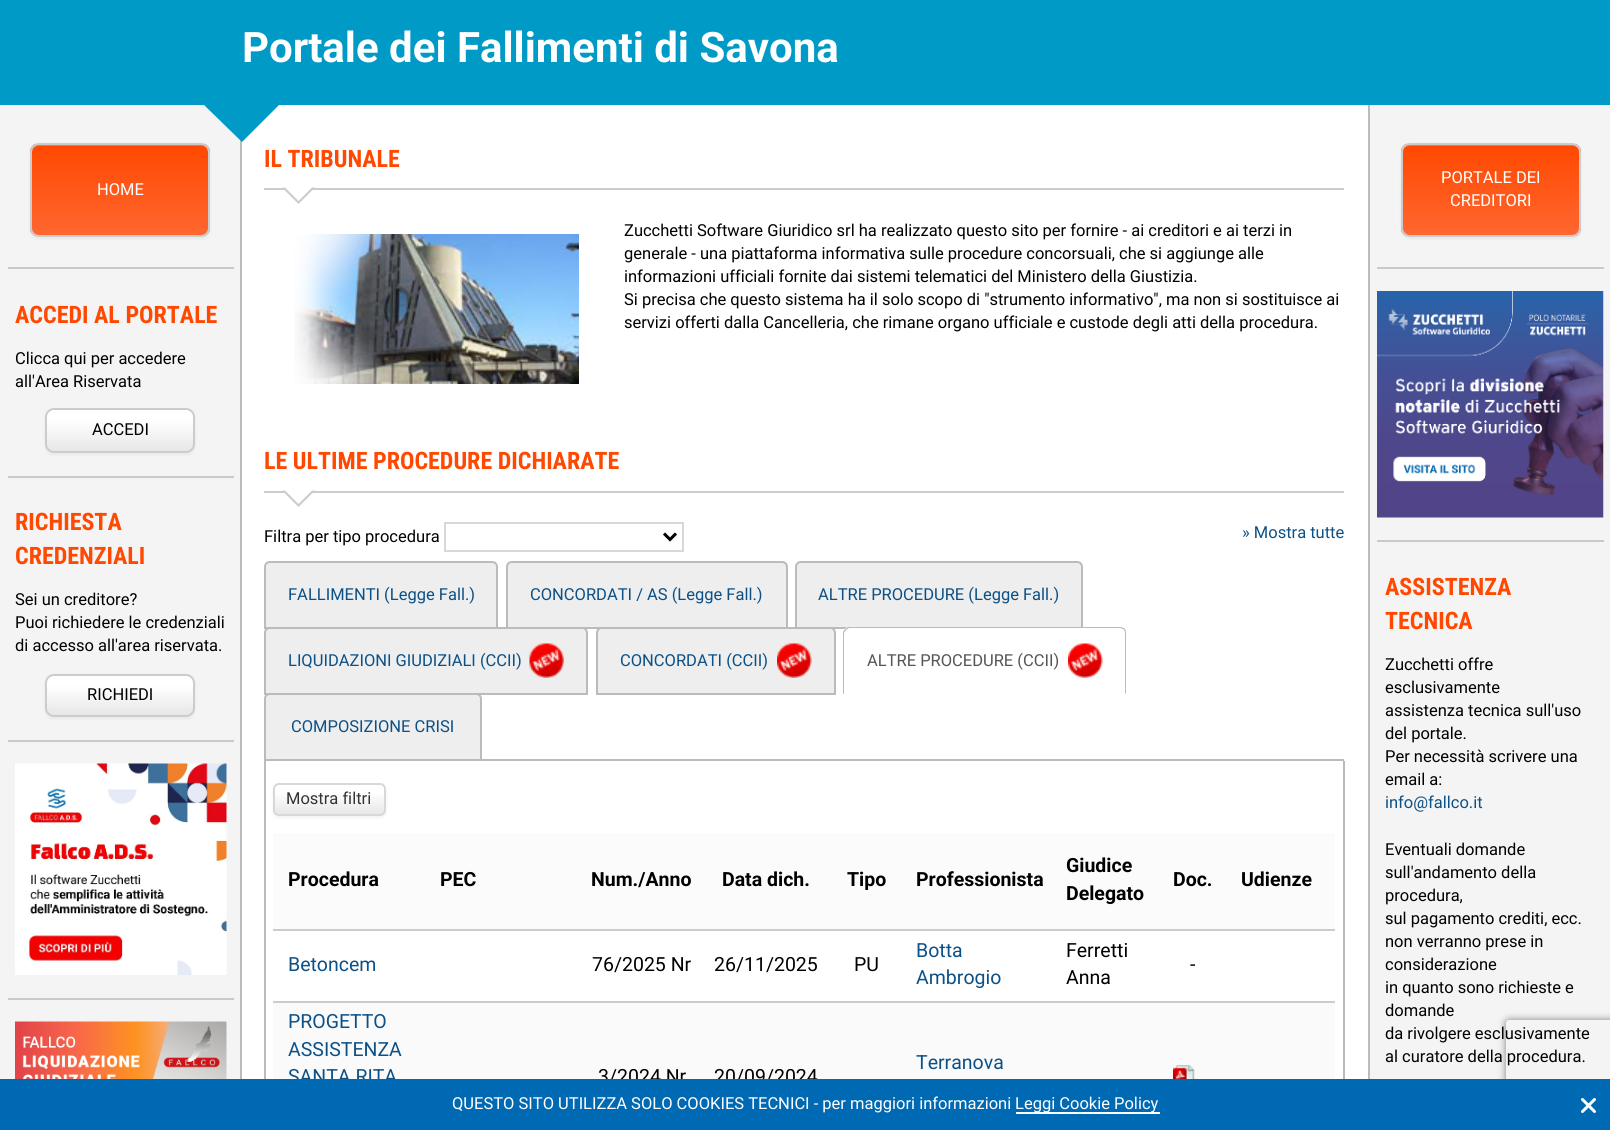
import math
import cairo


def round_path(ctx, x, y, w, h, r):
	ctx.new_sub_path()
	for i, (u, v) in enumerate([(x + w - r, y + h - r), (x + r, y + h - r), (x + r, y + r), (x + w - r, y + r)]):
		ctx.arc(u, v, r, i * math.pi / 2, (i + 1) * math.pi / 2)
	ctx.close_path()

def blur_box(ctx, x, y, w, h, r, blur, alpha):
	ctx.push_group_with_content(cairo.CONTENT_ALPHA)
	ctx.set_operator(cairo.OPERATOR_SOURCE)
	for i in range(15, -16, -2):
		e = blur * i / 6
		if min(w, h) + 2 * e > 0:
			ctx.set_source_rgba(0, 0, 0, alpha * math.erfc((i - 1) / 8.5) / 2)
			round_path(ctx, x - e, y - e, w + 2 * e, h + 2 * e, max(0, min(r + e + blur * .6, min(w, h) / 2 + e)))
			ctx.fill()
	ctx.mask(ctx.pop_group())

def paste(ctx, path, x, y, w, h):
	ctx.save()
	ctx.set_source_surface(cairo.ImageSurface.create_from_png(path), x, y)
	ctx.rectangle(x, y, w, h)
	ctx.fill()
	ctx.restore()

def draw(ctx):
	ctx.set_source_rgb(0, 0.604, 0.776)
	ctx.paint()
	ctx.select_font_face('Roboto', cairo.FONT_SLANT_NORMAL, cairo.FONT_WEIGHT_BOLD)
	ctx.set_font_size(42)
	ctx.set_source_rgb(1, 1, 1)
	ctx.move_to(242, 62)
	ctx.show_text('Portale dei Fallimenti di Savona')
	ctx.rectangle(242, 105, 1126, 974)
	ctx.fill()
	ctx.set_source_rgb(0.957, 0.957, 0.957)
	ctx.rectangle(0, 105, 240, 974)
	ctx.fill()
	ctx.set_source_rgb(0.733, 0.733, 0.733)
	ctx.rectangle(240, 140, 2, 939)
	ctx.fill()
	ctx.set_source_rgb(0, 0, 0)
	blur_box(ctx, 30, 144, 180, 95, 9, 1.5, 0.05)
	ctx.set_source_rgb(0, 0.604, 0.776)
	ctx.new_path()
	ctx.move_to(204, 105)
	ctx.line_to(279, 105)
	ctx.line_to(242, 142)
	ctx.close_path()
	ctx.fill()
	ctx.set_source_rgb(0.957, 0.957, 0.957)
	ctx.rectangle(1370, 105, 240, 974)
	ctx.fill()
	ctx.set_source_rgb(0.733, 0.733, 0.733)
	ctx.rectangle(1368, 105, 2, 974)
	ctx.fill()
	ctx.set_source_rgb(0.788, 0.788, 0.788)
	ctx.rectangle(8, 267, 226, 2)
	ctx.fill()
	ctx.save()
	round_path(ctx, 30, 143, 180, 94, 9)
	ctx.clip()
	gradient = cairo.LinearGradient(120, 144, 120, 236)
	gradient.add_color_stop_rgba(0, 1, 0.282, 0, 1)
	gradient.add_color_stop_rgba(1, 1, 0.404, 0.188, 1)
	ctx.set_source(gradient)
	ctx.rectangle(30, 144, 180, 92)
	ctx.fill()
	ctx.restore()
	ctx.set_source_rgba(1, 1, 1, 0.2)
	ctx.new_path()
	ctx.move_to(39, 146)
	ctx.line_to(201, 146)
	ctx.curve_to(205, 146, 208, 149, 208, 153)
	ctx.line_to(208, 230)
	ctx.line_to(208, 233)
	ctx.curve_to(208, 231, 209, 230, 209, 228)
	ctx.line_to(209, 152)
	ctx.curve_to(209, 148, 205, 144, 201, 144)
	ctx.line_to(40, 144)
	ctx.curve_to(36, 144, 32, 148, 32, 152)
	ctx.line_to(32, 153)
	ctx.curve_to(32, 149, 35, 146, 39, 146)
	ctx.close_path()
	ctx.fill()
	round_path(ctx, 31, 144, 178, 92, 8)
	ctx.set_source_rgb(0.8, 0.8, 0.8)
	ctx.stroke()
	ctx.select_font_face('Roboto')
	ctx.set_font_size(16.5)
	ctx.set_source_rgb(1, 1, 1)
	ctx.move_to(97, 195)
	ctx.show_text('HOME')
	ctx.set_source_rgb(0.788, 0.788, 0.788)
	ctx.rectangle(8, 476, 226, 2)
	ctx.fill()
	ctx.select_font_face('Roboto Condensed', cairo.FONT_SLANT_NORMAL, cairo.FONT_WEIGHT_BOLD)
	ctx.set_font_size(24)
	ctx.set_source_rgb(1, 0.282, 0)
	ctx.move_to(15, 323)
	ctx.show_text('ACCEDI AL PORTALE')
	ctx.select_font_face('Roboto')
	ctx.set_font_size(16.5)
	ctx.set_source_rgb(0, 0, 0)
	ctx.move_to(15, 364)
	ctx.show_text('Clicca qui per accedere')
	ctx.move_to(15, 387)
	ctx.show_text('all\'Area Riservata')
	ctx.set_source_rgb(0, 0, 0)
	blur_box(ctx, 45, 410, 150, 45, 9, 1.5, 0.05)
	ctx.save()
	round_path(ctx, 45, 408, 150, 45, 9)
	ctx.clip()
	gradient = cairo.LinearGradient(120, 410, 120, 452)
	gradient.add_color_stop_rgba(0, 1, 1, 1, 1)
	gradient.add_color_stop_rgba(0.25, 1, 1, 1, 1)
	gradient.add_color_stop_rgba(1, 0.902, 0.902, 0.902, 1)
	ctx.set_source(gradient)
	ctx.rectangle(45, 410, 150, 42)
	ctx.fill()
	ctx.restore()
	round_path(ctx, 46, 409, 148, 43, 8)
	ctx.set_source_rgb(0.8, 0.8, 0.8)
	ctx.stroke()
	ctx.set_source_rgb(0, 0, 0)
	ctx.move_to(92, 435)
	ctx.show_text('ACCEDI')
	ctx.set_source_rgb(0.788, 0.788, 0.788)
	ctx.rectangle(8, 740, 226, 2)
	ctx.fill()
	ctx.select_font_face('Roboto Condensed', cairo.FONT_SLANT_NORMAL, cairo.FONT_WEIGHT_BOLD)
	ctx.set_font_size(24)
	ctx.set_source_rgb(1, 0.282, 0)
	ctx.move_to(15, 530)
	ctx.show_text('RICHIESTA')
	ctx.move_to(15, 564)
	ctx.show_text('CREDENZIALI')
	ctx.select_font_face('Roboto')
	ctx.set_font_size(16.5)
	ctx.set_source_rgb(0, 0, 0)
	for x, y, s in [
		(15, 605, 'Sei un creditore?'),
		(15, 628, 'Puoi richiedere le credenziali'),
		(15, 651, 'di accesso all\'area riservata.'),
	]:
		ctx.move_to(x, y)
		ctx.show_text(s)
	ctx.set_source_rgb(0, 0, 0)
	blur_box(ctx, 45, 675, 150, 44, 9, 1.5, 0.05)
	ctx.save()
	round_path(ctx, 45, 674, 150, 43, 9)
	ctx.clip()
	gradient = cairo.LinearGradient(120, 675, 120, 716)
	gradient.add_color_stop_rgba(0, 1, 1, 1, 1)
	gradient.add_color_stop_rgba(0.25, 1, 1, 1, 1)
	gradient.add_color_stop_rgba(1, 0.902, 0.902, 0.902, 1)
	ctx.set_source(gradient)
	ctx.rectangle(45, 675, 150, 41)
	ctx.fill()
	ctx.restore()
	round_path(ctx, 46, 675, 148, 41, 8)
	ctx.set_source_rgb(0.8, 0.8, 0.8)
	ctx.stroke()
	ctx.set_source_rgb(0, 0, 0)
	ctx.move_to(87, 700)
	ctx.show_text('RICHIEDI')
	ctx.set_source_rgb(0.788, 0.788, 0.788)
	ctx.rectangle(8, 998, 226, 2)
	ctx.fill()
	paste(ctx, 'media/1.png', 15, 763, 212, 212)
	paste(ctx, 'media/2.png', 15, 1021, 212, 58)
	ctx.select_font_face('Roboto Condensed', cairo.FONT_SLANT_NORMAL, cairo.FONT_WEIGHT_BOLD)
	ctx.set_font_size(24)
	ctx.set_source_rgb(1, 0.282, 0)
	ctx.move_to(264, 167)
	ctx.show_text('IL TRIBUNALE')
	ctx.set_source_rgb(0.8, 0.8, 0.8)
	ctx.rectangle(264, 188, 1080, 2)
	ctx.fill()
	ctx.new_path()
	ctx.move_to(282, 187.5)
	ctx.line_to(315, 187.5)
	ctx.line_to(298.5, 204)
	ctx.close_path()
	ctx.fill()
	ctx.set_source_rgb(1, 1, 1)
	ctx.new_path()
	ctx.move_to(283.5, 186)
	ctx.line_to(313.5, 186)
	ctx.line_to(298.5, 201)
	ctx.close_path()
	ctx.fill()
	paste(ctx, 'media/3.png', 294, 234, 285, 150)
	ctx.select_font_face('Roboto')
	ctx.set_font_size(16.5)
	ctx.set_source_rgb(0, 0, 0)
	for x, y, s in [
		(624, 236, 'Zucchetti Software Giuridico srl ha realizzato questo sito per fornire - ai creditori e ai terzi in'),
		(624, 259, 'generale - una piattaforma informativa sulle procedure concorsuali, che si aggiunge alle'),
		(624, 282, 'informazioni ufficiali fornite dai sistemi telematici del Ministero della Giustizia.'),
		(624, 305, 'Si precisa che questo sistema ha il solo scopo di "strumento informativo", ma non si sostituisce ai'),
		(624, 328, 'servizi offerti dalla Cancelleria, che rimane organo ufficiale e custode degli atti della procedura.'),
	]:
		ctx.move_to(x, y)
		ctx.show_text(s)
	ctx.select_font_face('Roboto Condensed', cairo.FONT_SLANT_NORMAL, cairo.FONT_WEIGHT_BOLD)
	ctx.set_font_size(24)
	ctx.set_source_rgb(1, 0.282, 0)
	ctx.move_to(264, 469)
	ctx.show_text('LE ULTIME PROCEDURE DICHIARATE')
	ctx.set_source_rgb(0.8, 0.8, 0.8)
	ctx.rectangle(264, 491, 1080, 2)
	ctx.fill()
	ctx.new_path()
	ctx.move_to(282, 490.5)
	ctx.line_to(315, 490.5)
	ctx.line_to(298.5, 507)
	ctx.close_path()
	ctx.fill()
	ctx.set_source_rgb(1, 1, 1)
	ctx.new_path()
	ctx.move_to(283.5, 489)
	ctx.line_to(313.5, 489)
	ctx.line_to(298.5, 504)
	ctx.close_path()
	ctx.fill()
	ctx.select_font_face('Roboto')
	ctx.set_font_size(16.5)
	ctx.set_source_rgb(0, 0, 0)
	ctx.move_to(264, 542)
	ctx.show_text('Filtra per tipo procedura')
	ctx.rectangle(445, 523, 238, 28)
	ctx.set_source_rgb(0.847, 0.847, 0.847)
	ctx.stroke()
	ctx.new_path()
	ctx.move_to(664, 533.5)
	ctx.line_to(670, 539.5)
	ctx.line_to(676, 533.5)
	ctx.set_source_rgb(0, 0, 0)
	ctx.set_line_width(3)
	ctx.stroke()
	ctx.set_source_rgb(0.047, 0.314, 0.525)
	ctx.move_to(1242, 538)
	ctx.show_text('» Mostra tutte')
	ctx.set_source_rgb(0.733, 0.733, 0.733)
	ctx.rectangle(482, 759, 862, 2)
	ctx.fill()
	ctx.set_source_rgb(0.933, 0.933, 0.933)
	ctx.new_path()
	ctx.move_to(270, 562)
	ctx.line_to(492, 562)
	ctx.curve_to(495, 562, 497, 564, 497, 567)
	ctx.line_to(497, 628)
	ctx.line_to(265, 628)
	ctx.line_to(265, 567)
	ctx.curve_to(265, 564, 267, 562, 270, 562)
	ctx.close_path()
	ctx.fill_preserve()
	ctx.set_source_rgb(0.733, 0.733, 0.733)
	ctx.set_line_width(2)
	ctx.stroke()
	ctx.set_source_rgb(0.047, 0.314, 0.525)
	ctx.move_to(288, 600)
	ctx.show_text('FALLIMENTI (Legge Fall.)')
	ctx.set_source_rgb(0.933, 0.933, 0.933)
	ctx.new_path()
	ctx.move_to(512, 562)
	ctx.line_to(782, 562)
	ctx.curve_to(785, 562, 787, 564, 787, 567)
	ctx.line_to(787, 628)
	ctx.line_to(507, 628)
	ctx.line_to(507, 567)
	ctx.curve_to(507, 564, 509, 562, 512, 562)
	ctx.close_path()
	ctx.fill_preserve()
	ctx.set_source_rgb(0.733, 0.733, 0.733)
	ctx.stroke()
	ctx.set_source_rgb(0.047, 0.314, 0.525)
	ctx.move_to(530, 600)
	ctx.show_text('CONCORDATI / AS (Legge Fall.)')
	ctx.set_source_rgb(0.933, 0.933, 0.933)
	ctx.new_path()
	ctx.move_to(801, 562)
	ctx.line_to(1077, 562)
	ctx.curve_to(1080, 562, 1082, 564, 1082, 567)
	ctx.line_to(1082, 628)
	ctx.line_to(796, 628)
	ctx.line_to(796, 567)
	ctx.curve_to(796, 564, 798, 562, 801, 562)
	ctx.close_path()
	ctx.fill_preserve()
	ctx.set_source_rgb(0.733, 0.733, 0.733)
	ctx.stroke()
	ctx.set_source_rgb(0.047, 0.314, 0.525)
	ctx.move_to(818, 600)
	ctx.show_text('ALTRE PROCEDURE (Legge Fall.)')
	ctx.set_source_rgb(0.933, 0.933, 0.933)
	ctx.new_path()
	ctx.move_to(270, 628)
	ctx.line_to(582, 628)
	ctx.curve_to(585, 628, 587, 630, 587, 633)
	ctx.line_to(587, 694)
	ctx.line_to(265, 694)
	ctx.line_to(265, 633)
	ctx.curve_to(265, 630, 267, 628, 270, 628)
	ctx.close_path()
	ctx.fill_preserve()
	ctx.set_source_rgb(0.733, 0.733, 0.733)
	ctx.stroke()
	ctx.set_source_rgb(0.047, 0.314, 0.525)
	ctx.move_to(288, 666)
	ctx.show_text('LIQUIDAZIONI GIUDIZIALI (CCII)')
	paste(ctx, 'media/4.png', 529, 643, 35, 35)
	ctx.set_source_rgb(0.933, 0.933, 0.933)
	ctx.new_path()
	ctx.move_to(602, 628)
	ctx.line_to(830, 628)
	ctx.curve_to(833, 628, 835, 630, 835, 633)
	ctx.line_to(835, 694)
	ctx.line_to(597, 694)
	ctx.line_to(597, 633)
	ctx.curve_to(597, 630, 599, 628, 602, 628)
	ctx.close_path()
	ctx.fill_preserve()
	ctx.set_source_rgb(0.733, 0.733, 0.733)
	ctx.stroke()
	ctx.set_source_rgb(0.047, 0.314, 0.525)
	ctx.move_to(620, 666)
	ctx.show_text('CONCORDATI (CCII)')
	paste(ctx, 'media/5.png', 777, 643, 35, 35)
	ctx.set_source_rgb(1, 1, 1)
	ctx.new_path()
	ctx.move_to(849, 627)
	ctx.line_to(1121, 627)
	ctx.curve_to(1124.5, 627, 1127, 629.5, 1127, 633)
	ctx.line_to(1127, 695)
	ctx.line_to(843, 695)
	ctx.line_to(843, 633)
	ctx.curve_to(843, 629.5, 845.5, 627, 849, 627)
	ctx.close_path()
	ctx.fill()
	ctx.set_source_rgb(0.733, 0.733, 0.733)
	ctx.new_path()
	ctx.move_to(849, 627)
	ctx.curve_to(848, 627, 846, 628, 845, 629)
	ctx.line_to(846, 630)
	ctx.line_to(849, 628)
	ctx.line_to(1120, 628)
	ctx.curve_to(1121, 628, 1123, 629, 1124, 630)
	ctx.line_to(1125, 629)
	ctx.curve_to(1124, 628, 1122, 627, 1120, 627)
	ctx.close_path()
	ctx.fill()
	ctx.new_path()
	ctx.move_to(1125, 629)
	ctx.curve_to(1126, 630, 1126, 632, 1126, 633)
	ctx.line_to(1126, 694)
	ctx.line_to(1125, 693)
	ctx.line_to(1125, 633)
	ctx.curve_to(1125, 632, 1125, 631, 1124, 630)
	ctx.close_path()
	ctx.fill()
	ctx.new_path()
	ctx.move_to(843, 633)
	ctx.line_to(843, 694)
	ctx.line_to(844, 694)
	ctx.line_to(844, 693)
	ctx.line_to(844, 633)
	ctx.line_to(846, 630)
	ctx.line_to(845, 629)
	ctx.curve_to(844, 630, 843, 632, 843, 633)
	ctx.close_path()
	ctx.fill()
	ctx.set_source_rgb(0.333, 0.333, 0.333)
	ctx.move_to(867, 666)
	ctx.show_text('ALTRE PROCEDURE (CCII)')
	paste(ctx, 'media/6.png', 1068, 643, 35, 35)
	ctx.set_source_rgb(0.933, 0.933, 0.933)
	ctx.new_path()
	ctx.move_to(270, 694)
	ctx.line_to(476, 694)
	ctx.curve_to(479, 694, 481, 696, 481, 699)
	ctx.line_to(481, 760)
	ctx.line_to(265, 760)
	ctx.line_to(265, 699)
	ctx.curve_to(265, 696, 267, 694, 270, 694)
	ctx.close_path()
	ctx.fill_preserve()
	ctx.set_source_rgb(0.733, 0.733, 0.733)
	ctx.stroke()
	ctx.set_source_rgb(0.047, 0.314, 0.525)
	ctx.move_to(291, 732)
	ctx.show_text('COMPOSIZIONE CRISI')
	ctx.set_source_rgb(0.733, 0.733, 0.733)
	ctx.rectangle(1343, 761, 2, 318)
	ctx.fill()
	ctx.rectangle(264, 761, 2, 318)
	ctx.fill()
	ctx.set_source_rgb(0, 0, 0)
	blur_box(ctx, 273, 785, 113, 33, 6, 1.5, 0.05)
	ctx.save()
	round_path(ctx, 273, 783, 113, 33, 6)
	ctx.clip()
	gradient = cairo.LinearGradient(329, 785, 329, 815)
	gradient.add_color_stop_rgba(0, 1, 1, 1, 1)
	gradient.add_color_stop_rgba(0.25, 1, 1, 1, 1)
	gradient.add_color_stop_rgba(1, 0.902, 0.902, 0.902, 1)
	ctx.set_source(gradient)
	ctx.rectangle(273, 785, 113, 30)
	ctx.fill()
	ctx.restore()
	round_path(ctx, 274, 784, 111, 31, 5)
	ctx.set_source_rgb(0.847, 0.847, 0.847)
	ctx.stroke()
	ctx.set_source_rgb(0.2, 0.2, 0.2)
	ctx.move_to(286, 804)
	ctx.show_text('Mostra filtri')
	ctx.set_source_rgb(0.984, 0.984, 0.984)
	ctx.rectangle(273, 833, 1062, 96)
	ctx.fill()
	ctx.select_font_face('Roboto', cairo.FONT_SLANT_NORMAL, cairo.FONT_WEIGHT_BOLD)
	ctx.set_font_size(19.5)
	ctx.set_source_rgb(0, 0, 0)
	for x, y, s in [
		(288, 886, 'Procedura'),
		(440, 886, 'PEC'),
		(591, 886, 'Num./Anno'),
		(722, 886, 'Data dich.'),
		(847, 886, 'Tipo'),
		(916, 886, 'Professionista'),
		(1066, 872, 'Giudice'),
		(1066, 900, 'Delegato'),
		(1173, 886, 'Doc.'),
		(1241, 886, 'Udienze'),
	]:
		ctx.move_to(x, y)
		ctx.show_text(s)
	ctx.set_source_rgb(0.8, 0.8, 0.8)
	ctx.rectangle(273, 929, 1062, 2)
	ctx.fill()
	ctx.select_font_face('Roboto')
	ctx.set_source_rgb(0.047, 0.314, 0.525)
	ctx.move_to(288, 971)
	ctx.show_text('Betoncem')
	ctx.set_source_rgb(0, 0, 0)
	for x, y, s in [
		(592, 971, '76/2025 Nr'),
		(714, 971, '26/11/2025'),
		(854, 971, 'PU'),
	]:
		ctx.move_to(x, y)
		ctx.show_text(s)
	ctx.set_source_rgb(0.047, 0.314, 0.525)
	ctx.move_to(916, 957)
	ctx.show_text('Botta')
	ctx.move_to(916, 984)
	ctx.show_text('Ambrogio')
	ctx.set_source_rgb(0, 0, 0)
	for x, y, s in [
		(1066, 957, 'Ferretti'),
		(1066, 984, 'Anna'),
		(1190, 971, '-'),
	]:
		ctx.move_to(x, y)
		ctx.show_text(s)
	ctx.set_source_rgb(0.98, 0.98, 0.98)
	ctx.rectangle(273, 1003, 1062, 76)
	ctx.fill()
	ctx.set_source_rgb(0.8, 0.8, 0.8)
	ctx.rectangle(273, 1001, 1062, 2)
	ctx.fill()
	ctx.set_source_rgb(0.047, 0.314, 0.525)
	for x, y, s in [
		(288, 1028, 'PROGETTO'),
		(288, 1056, 'ASSISTENZA'),
		(288, 1083, 'SANTA RITA'),
		(916, 1069, 'Terranova'),
	]:
		ctx.move_to(x, y)
		ctx.show_text(s)
	ctx.set_source_rgb(0, 0, 0)
	ctx.move_to(598, 1083)
	ctx.show_text('3/2024 Nr')
	ctx.move_to(714, 1083)
	ctx.show_text('20/09/2024')
	paste(ctx, 'media/7.png', 1173, 1065, 22, 14)
	ctx.set_source_rgb(0.788, 0.788, 0.788)
	ctx.rectangle(1377, 267, 227, 2)
	ctx.fill()
	ctx.set_source_rgb(0, 0, 0)
	blur_box(ctx, 1401, 144, 180, 95, 9, 1.5, 0.05)
	ctx.save()
	round_path(ctx, 1401, 143, 180, 94, 9)
	ctx.clip()
	gradient = cairo.LinearGradient(1491, 144, 1491, 236)
	gradient.add_color_stop_rgba(0, 1, 0.282, 0, 1)
	gradient.add_color_stop_rgba(1, 1, 0.404, 0.188, 1)
	ctx.set_source(gradient)
	ctx.rectangle(1401, 144, 180, 92)
	ctx.fill()
	ctx.restore()
	ctx.set_source_rgb(1, 0.427, 0.2)
	ctx.new_path()
	ctx.move_to(1410, 146)
	ctx.line_to(1572, 146)
	ctx.curve_to(1576, 146, 1580, 149, 1580, 153)
	ctx.line_to(1580, 152)
	ctx.curve_to(1580, 148, 1576, 144, 1572, 144)
	ctx.line_to(1411, 144)
	ctx.curve_to(1408, 144, 1405, 146, 1404, 149)
	ctx.curve_to(1405, 147, 1408, 146, 1410, 146)
	ctx.close_path()
	ctx.fill()
	round_path(ctx, 1402, 144, 178, 92, 8)
	ctx.set_source_rgb(0.8, 0.8, 0.8)
	ctx.stroke()
	ctx.set_font_size(16.5)
	ctx.set_source_rgb(1, 1, 1)
	ctx.move_to(1441, 183)
	ctx.show_text('PORTALE DEI')
	ctx.move_to(1450, 206)
	ctx.show_text('CREDITORI')
	ctx.set_source_rgb(0.788, 0.788, 0.788)
	ctx.rectangle(1377, 540, 227, 2)
	ctx.fill()
	paste(ctx, 'media/8.png', 1377, 291, 227, 227)
	ctx.select_font_face('Roboto Condensed', cairo.FONT_SLANT_NORMAL, cairo.FONT_WEIGHT_BOLD)
	ctx.set_font_size(24)
	ctx.set_source_rgb(1, 0.282, 0)
	ctx.move_to(1385, 595)
	ctx.show_text('ASSISTENZA')
	ctx.move_to(1385, 629)
	ctx.show_text('TECNICA')
	ctx.select_font_face('Roboto')
	ctx.set_font_size(16.5)
	ctx.set_source_rgb(0, 0, 0)
	for x, y, s in [
		(1385, 670, 'Zucchetti offre'),
		(1385, 693, 'esclusivamente'),
		(1385, 716, 'assistenza tecnica sull\'uso'),
		(1385, 739, 'del portale.'),
		(1385, 762, 'Per necessità scrivere una'),
		(1385, 785, 'email a:'),
	]:
		ctx.move_to(x, y)
		ctx.show_text(s)
	ctx.set_source_rgb(0.047, 0.314, 0.525)
	ctx.move_to(1385, 808)
	ctx.show_text('info@fallco.it')
	ctx.set_source_rgb(0, 0, 0)
	for x, y, s in [
		(1385, 855, 'Eventuali domande'),
		(1385, 878, 'sull\'andamento della'),
		(1385, 901, 'procedura,'),
		(1385, 924, 'sul pagamento crediti, ecc.'),
		(1385, 947, 'non verranno prese in'),
		(1385, 970, 'considerazione'),
		(1385, 993, 'in quanto sono richieste e'),
		(1385, 1016, 'domande'),
	]:
		ctx.move_to(x, y)
		ctx.show_text(s)
	ctx.save()
	ctx.set_fill_rule(cairo.FILL_RULE_EVEN_ODD)
	ctx.new_path()
	ctx.move_to(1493, 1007)
	ctx.line_to(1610, 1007)
	ctx.line_to(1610, 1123)
	ctx.line_to(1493, 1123)
	ctx.close_path()
	ctx.move_to(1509, 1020)
	ctx.line_to(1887, 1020)
	ctx.curve_to(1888.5, 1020, 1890, 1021.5, 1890, 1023)
	ctx.line_to(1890, 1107)
	ctx.curve_to(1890, 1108.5, 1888.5, 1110, 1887, 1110)
	ctx.line_to(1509, 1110)
	ctx.curve_to(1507.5, 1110, 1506, 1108.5, 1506, 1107)
	ctx.line_to(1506, 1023)
	ctx.curve_to(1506, 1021.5, 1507.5, 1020, 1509, 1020)
	ctx.close_path()
	ctx.clip()
	ctx.set_source_rgb(0.502, 0.502, 0.502)
	blur_box(ctx, 1506, 1020, 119, 90, 3, 4, 1)
	ctx.restore()
	ctx.move_to(1385, 1039)
	ctx.show_text('da rivolgere esclusivamente')
	ctx.move_to(1385, 1062)
	ctx.show_text('al curatore della procedura.')
	ctx.set_source_rgb(0, 0.412, 0.706)
	ctx.rectangle(0, 1079, 1610, 51)
	ctx.fill()
	ctx.set_source_rgb(1, 1, 1)
	ctx.move_to(452, 1109)
	ctx.show_text('QUESTO SITO UTILIZZA SOLO COOKIES TECNICI - per maggiori informazioni')
	ctx.rectangle(1016, 1112, 144, 2)
	ctx.fill()
	ctx.move_to(1015, 1109)
	ctx.show_text('Leggi Cookie Policy')
	paste(ctx, 'media/9.png', 1581, 1098, 15, 15)


surface = cairo.ImageSurface(cairo.FORMAT_RGB24, 1610, 1130)
ctx = cairo.Context(surface)
options = cairo.FontOptions()
options.set_hint_metrics(cairo.HINT_METRICS_OFF)
options.set_hint_style(cairo.HINT_STYLE_NONE)
ctx.set_font_options(options)
ctx.set_miter_limit(4)
draw(ctx)
surface.write_to_png('image.png')
